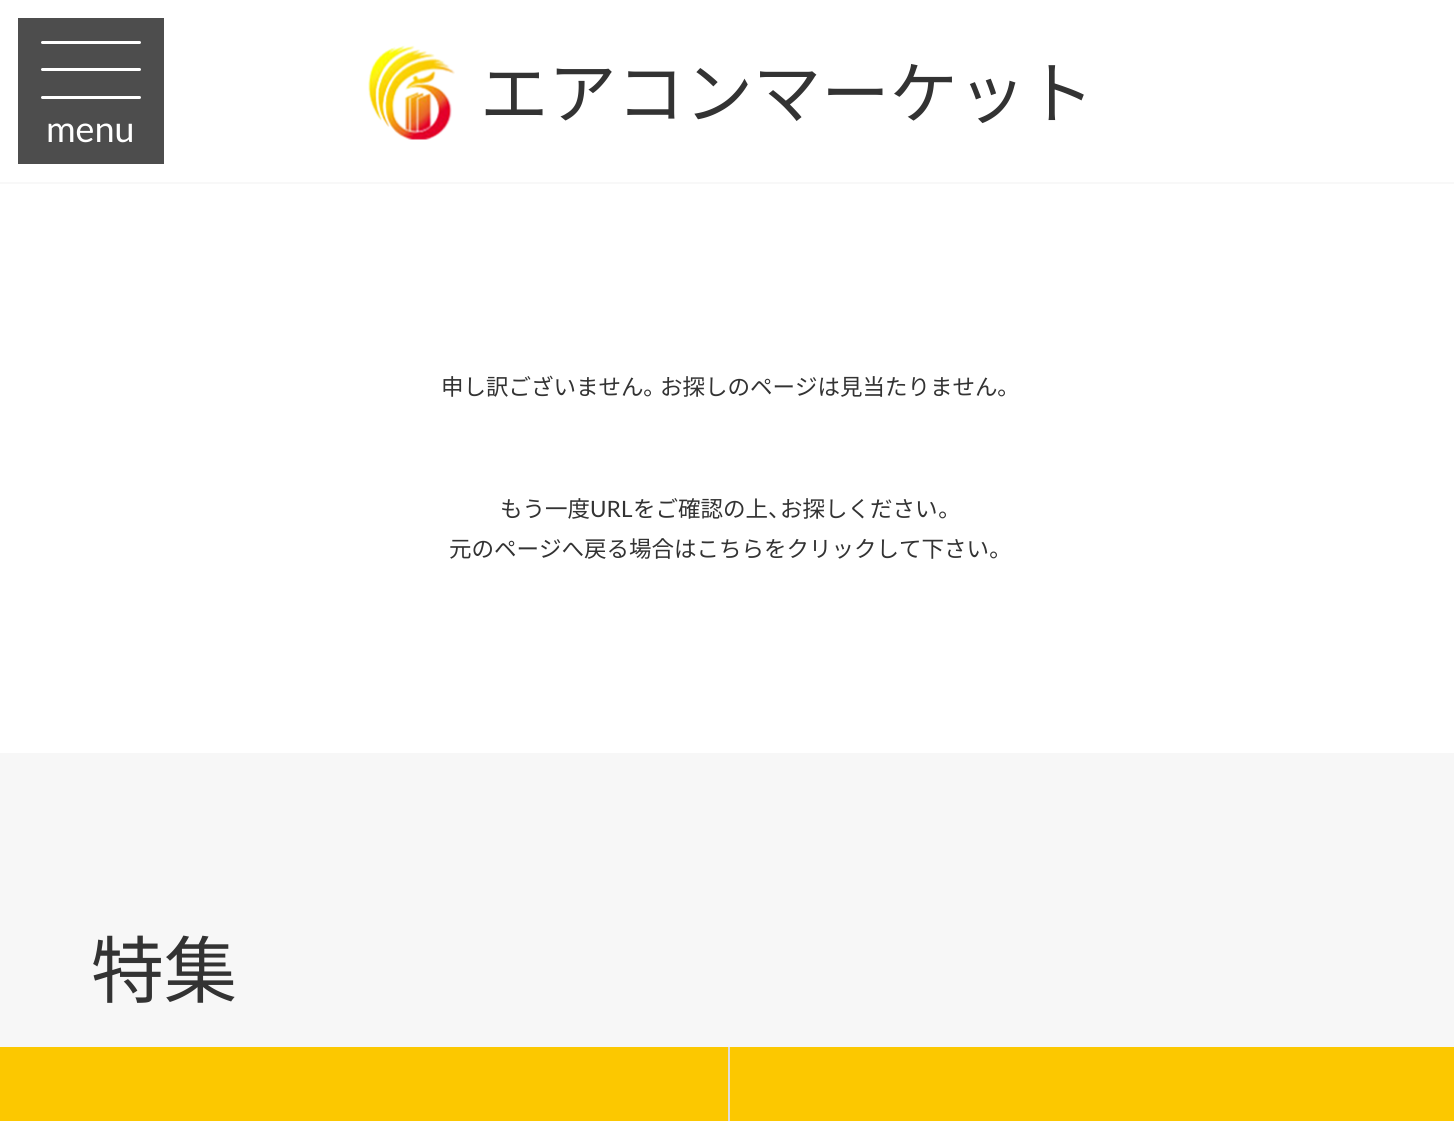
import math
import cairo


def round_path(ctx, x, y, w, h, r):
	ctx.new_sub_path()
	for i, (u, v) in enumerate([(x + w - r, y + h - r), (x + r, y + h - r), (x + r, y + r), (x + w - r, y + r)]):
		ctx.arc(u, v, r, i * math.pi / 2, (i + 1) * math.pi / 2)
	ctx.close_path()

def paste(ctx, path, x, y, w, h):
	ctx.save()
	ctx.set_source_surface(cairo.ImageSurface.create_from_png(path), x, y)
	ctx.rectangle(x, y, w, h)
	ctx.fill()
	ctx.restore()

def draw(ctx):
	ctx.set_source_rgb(1, 1, 1)
	ctx.paint()
	paste(ctx, 'media/1.png', 368, 45, 87, 95)
	ctx.select_font_face('Noto Sans JP')
	ctx.set_font_size(68.25)
	ctx.set_source_rgb(0.2, 0.2, 0.2)
	ctx.move_to(480, 118)
	ctx.show_text('エアコンマーケット')
	ctx.set_source_rgb(0.302, 0.302, 0.302)
	ctx.rectangle(18, 18, 146, 146)
	ctx.fill()
	ctx.set_source_rgb(1, 1, 1)
	round_path(ctx, 41, 41, 100, 3, 1.5)
	ctx.fill()
	round_path(ctx, 41, 68, 100, 3, 1.5)
	ctx.fill()
	round_path(ctx, 41, 96, 100, 3, 1.5)
	ctx.fill()
	ctx.select_font_face('Lato')
	ctx.set_font_size(36)
	ctx.move_to(46, 142)
	ctx.show_text('menu')
	ctx.set_source_rgb(0.969, 0.969, 0.969)
	ctx.rectangle(0, 182, 1454, 2)
	ctx.fill()
	ctx.select_font_face('Noto Sans JP')
	ctx.set_font_size(22.5)
	ctx.set_source_rgb(0.2, 0.2, 0.2)
	ctx.move_to(441, 395)
	ctx.show_text('申し訳ございません')
	ctx.select_font_face('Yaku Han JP')
	ctx.move_to(643, 395)
	ctx.show_text('。')
	ctx.select_font_face('Noto Sans JP')
	ctx.move_to(660, 395)
	ctx.show_text('お探しのページは見当たりません')
	ctx.select_font_face('Yaku Han JP')
	ctx.move_to(997, 395)
	ctx.show_text('。')
	ctx.select_font_face('Noto Sans JP')
	ctx.move_to(500, 517)
	ctx.show_text('もう一度')
	ctx.select_font_face('Lato')
	ctx.move_to(590, 517)
	ctx.show_text('URL')
	ctx.select_font_face('Noto Sans JP')
	ctx.move_to(633, 517)
	ctx.show_text('をご確認の上')
	ctx.select_font_face('Yaku Han JP')
	ctx.move_to(768, 517)
	ctx.show_text('、')
	ctx.select_font_face('Noto Sans JP')
	ctx.move_to(780, 517)
	ctx.show_text('お探しください')
	ctx.select_font_face('Yaku Han JP')
	ctx.move_to(938, 517)
	ctx.show_text('。')
	ctx.select_font_face('Noto Sans JP')
	ctx.move_to(449, 557)
	ctx.show_text('元のページへ戻る場合はこちらをクリックして下さい')
	ctx.select_font_face('Yaku Han JP')
	ctx.move_to(989, 557)
	ctx.show_text('。')
	ctx.set_source_rgb(0.965, 0.965, 0.965)
	ctx.rectangle(0, 753, 1454, 294)
	ctx.fill()
	ctx.select_font_face('Noto Sans JP')
	ctx.set_font_size(73)
	ctx.set_source_rgb(0.2, 0.2, 0.2)
	ctx.move_to(91, 997)
	ctx.show_text('特集')
	ctx.set_source_rgb(0.988, 0.784, 0)
	ctx.rectangle(0, 1047, 728, 74)
	ctx.rectangle(730, 1047, 724, 74)
	ctx.fill()
	ctx.set_source_rgb(0.867, 0.867, 0.867)
	ctx.rectangle(728, 1047, 2, 74)
	ctx.fill()


surface = cairo.ImageSurface(cairo.FORMAT_RGB24, 1454, 1121)
ctx = cairo.Context(surface)
options = cairo.FontOptions()
options.set_hint_metrics(cairo.HINT_METRICS_OFF)
options.set_hint_style(cairo.HINT_STYLE_NONE)
ctx.set_font_options(options)
ctx.set_miter_limit(4)
draw(ctx)
surface.write_to_png('image.png')
